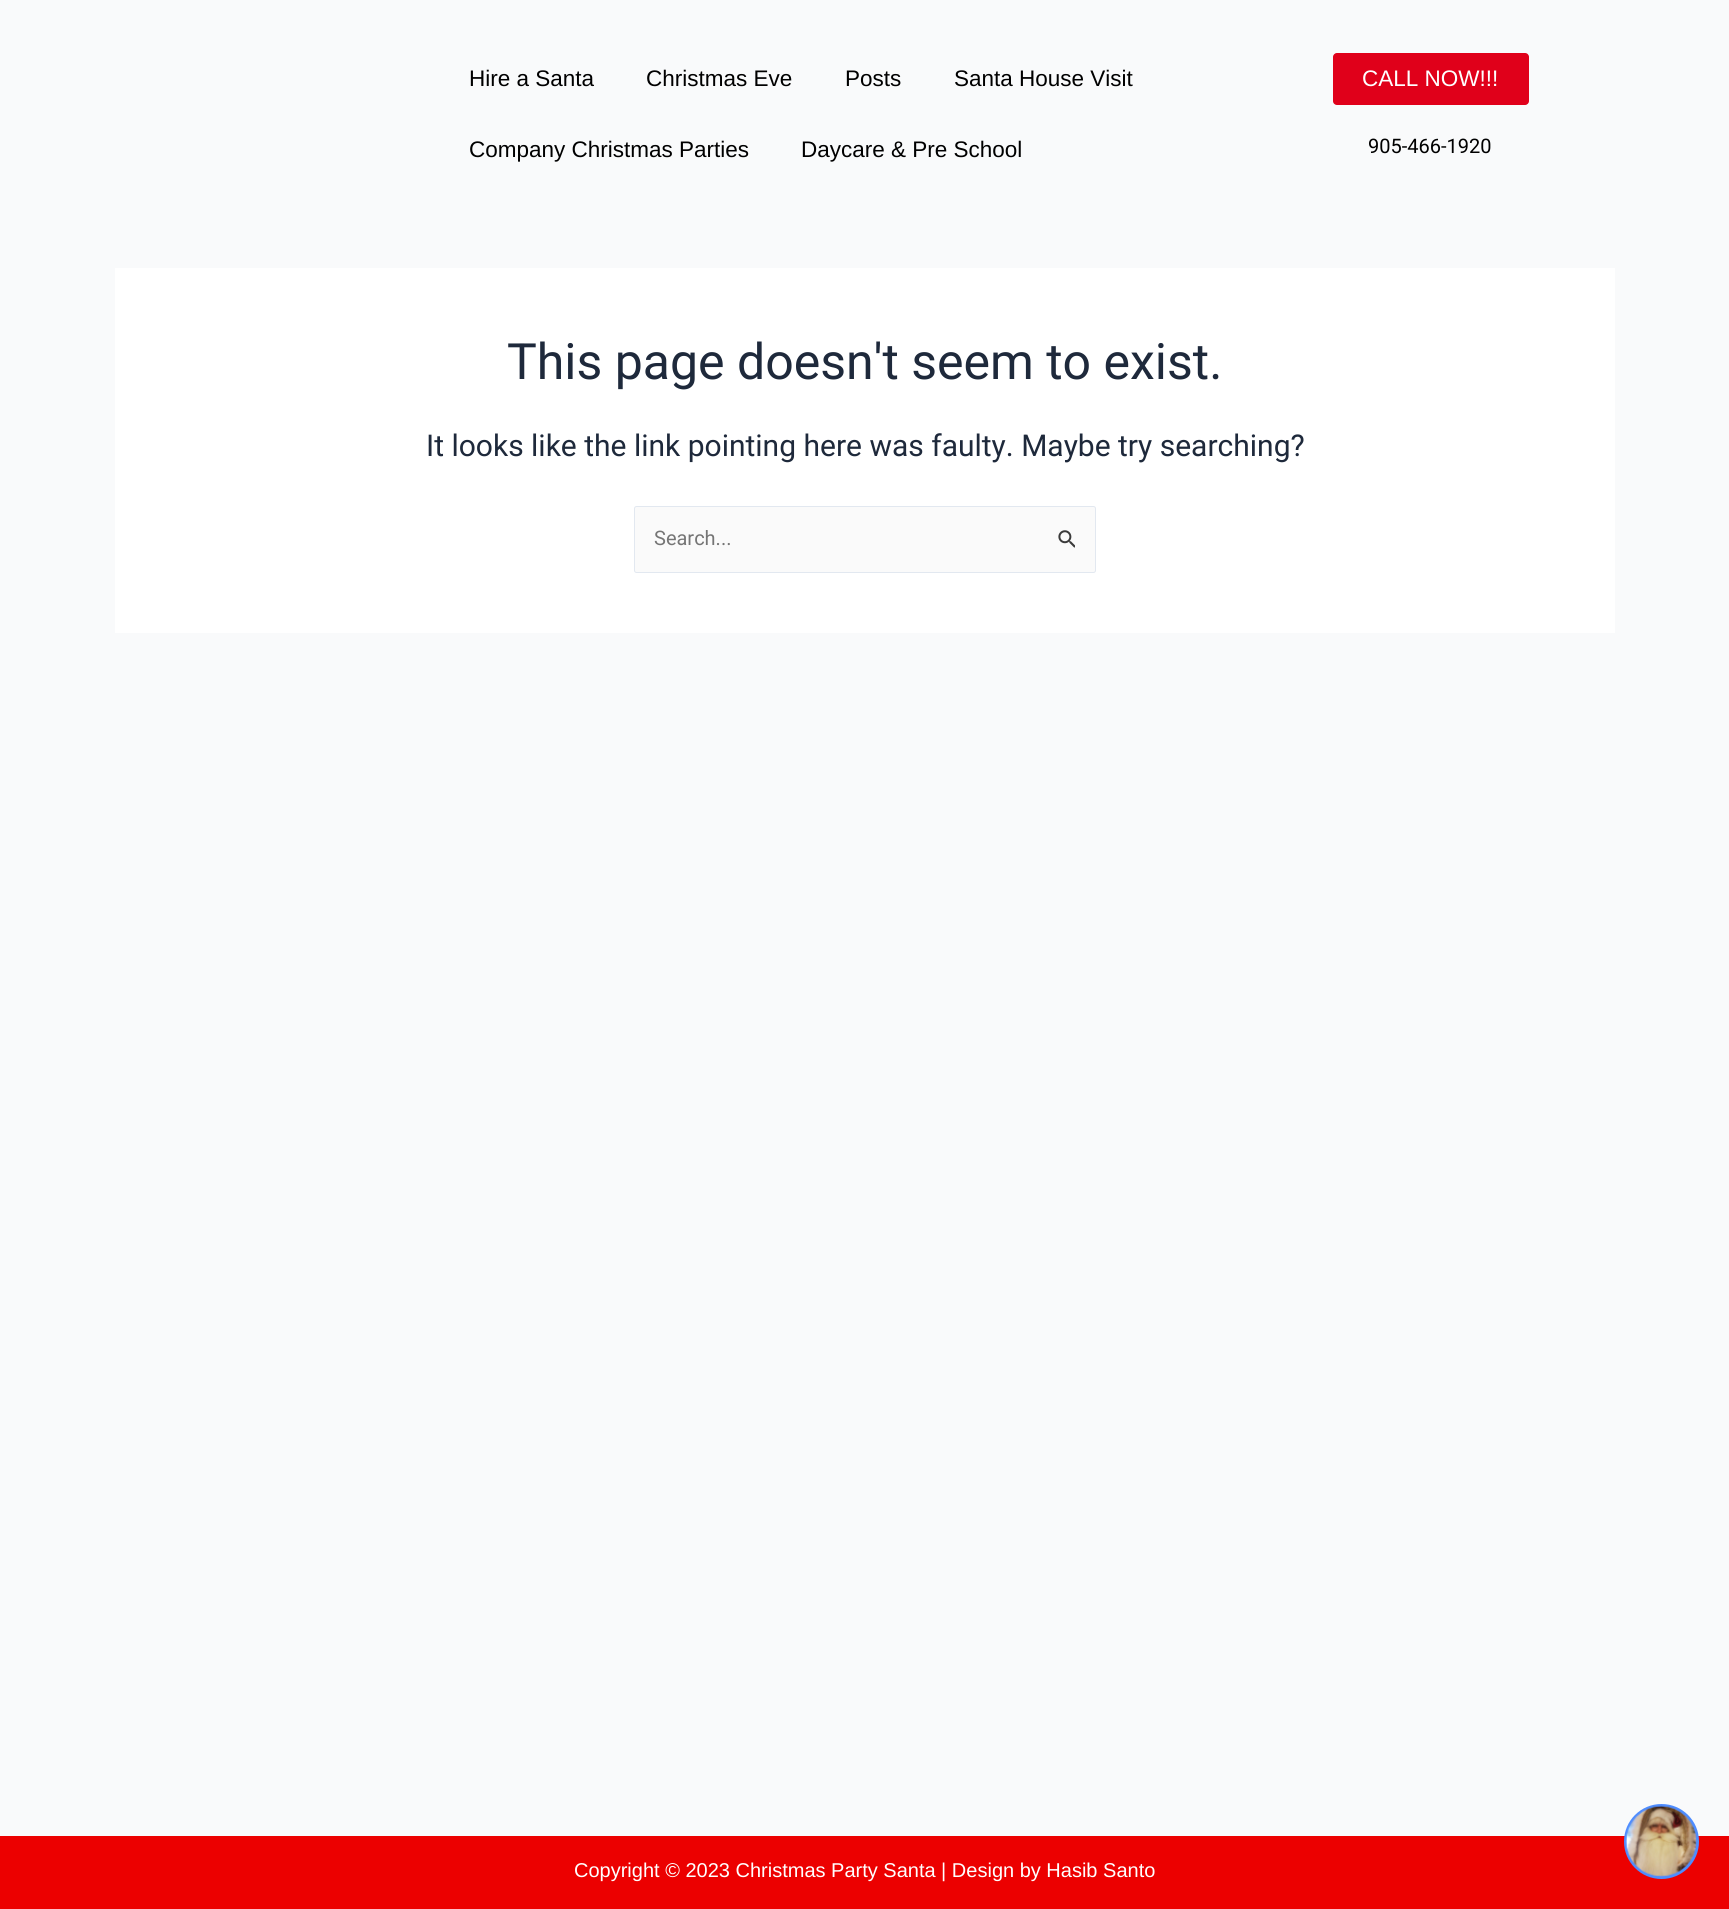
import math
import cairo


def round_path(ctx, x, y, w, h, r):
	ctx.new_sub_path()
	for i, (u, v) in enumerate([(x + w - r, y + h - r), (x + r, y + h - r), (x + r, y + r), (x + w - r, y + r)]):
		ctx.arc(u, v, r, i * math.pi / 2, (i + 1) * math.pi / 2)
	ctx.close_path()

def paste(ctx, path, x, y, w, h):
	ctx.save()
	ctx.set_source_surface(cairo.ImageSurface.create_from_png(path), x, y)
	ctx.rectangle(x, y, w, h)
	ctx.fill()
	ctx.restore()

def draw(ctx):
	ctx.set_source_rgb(0.976, 0.98, 0.984)
	ctx.paint()
	ctx.select_font_face('Liberation Sans')
	ctx.set_font_size(22.5)
	ctx.set_source_rgb(0, 0, 0)
	for x, y, s in [
		(469, 86, 'Hire a Santa'),
		(646, 86, 'Christmas Eve'),
		(845, 86, 'Posts'),
		(954, 86, 'Santa House Visit'),
		(469, 157, 'Company Christmas Parties'),
		(801, 157, 'Daycare & Pre School'),
	]:
		ctx.move_to(x, y)
		ctx.show_text(s)
	ctx.set_source_rgb(0.878, 0, 0.102)
	round_path(ctx, 1333, 53, 196, 52, 4)
	ctx.fill()
	ctx.set_source_rgb(1, 1, 1)
	ctx.move_to(1362, 86)
	ctx.show_text('CALL NOW!!!')
	ctx.select_font_face('Roboto')
	ctx.set_font_size(20)
	ctx.set_source_rgb(0, 0, 0)
	ctx.move_to(1368, 153)
	ctx.show_text('905-466-1920')
	ctx.set_source_rgb(1, 1, 1)
	ctx.rectangle(115, 268, 1500, 365)
	ctx.fill()
	ctx.set_font_size(50)
	ctx.set_source_rgb(0.118, 0.161, 0.231)
	ctx.move_to(507, 379)
	ctx.show_text('This page doesn\'t seem to exist.')
	ctx.set_font_size(30)
	ctx.move_to(426, 456)
	ctx.show_text('It looks like the link pointing here was faulty. Maybe try searching?')
	ctx.set_source_rgb(0.98, 0.98, 0.98)
	round_path(ctx, 634.5, 506.5, 461, 66, 2)
	ctx.fill_preserve()
	ctx.set_source_rgb(0.886, 0.91, 0.941)
	ctx.set_line_width(1)
	ctx.stroke()
	ctx.set_font_size(20)
	ctx.set_source_rgb(0.459, 0.459, 0.459)
	ctx.move_to(654, 545)
	ctx.show_text('Search...')
	paste(ctx, 'media/1.png', 1058, 530, 17, 18)
	ctx.set_source_rgb(0.922, 0, 0)
	ctx.rectangle(0, 1836, 1729, 73)
	ctx.fill()
	ctx.select_font_face('Liberation Sans')
	ctx.set_source_rgb(1, 1, 1)
	ctx.move_to(574, 1877)
	ctx.show_text('Copyright © 2023 Christmas Party Santa | Design by Hasib Santo')
	ctx.set_source_rgb(0.306, 0.549, 1)
	ctx.new_path()
	ctx.arc(1661.5, 1841.5, 37.5, 0, 2 * math.pi)
	ctx.fill()
	paste(ctx, 'media/2.png', 1625, 1805, 72, 72)


surface = cairo.ImageSurface(cairo.FORMAT_RGB24, 1729, 1909)
ctx = cairo.Context(surface)
options = cairo.FontOptions()
options.set_hint_metrics(cairo.HINT_METRICS_OFF)
options.set_hint_style(cairo.HINT_STYLE_NONE)
ctx.set_font_options(options)
ctx.set_miter_limit(4)
draw(ctx)
surface.write_to_png('image.png')
